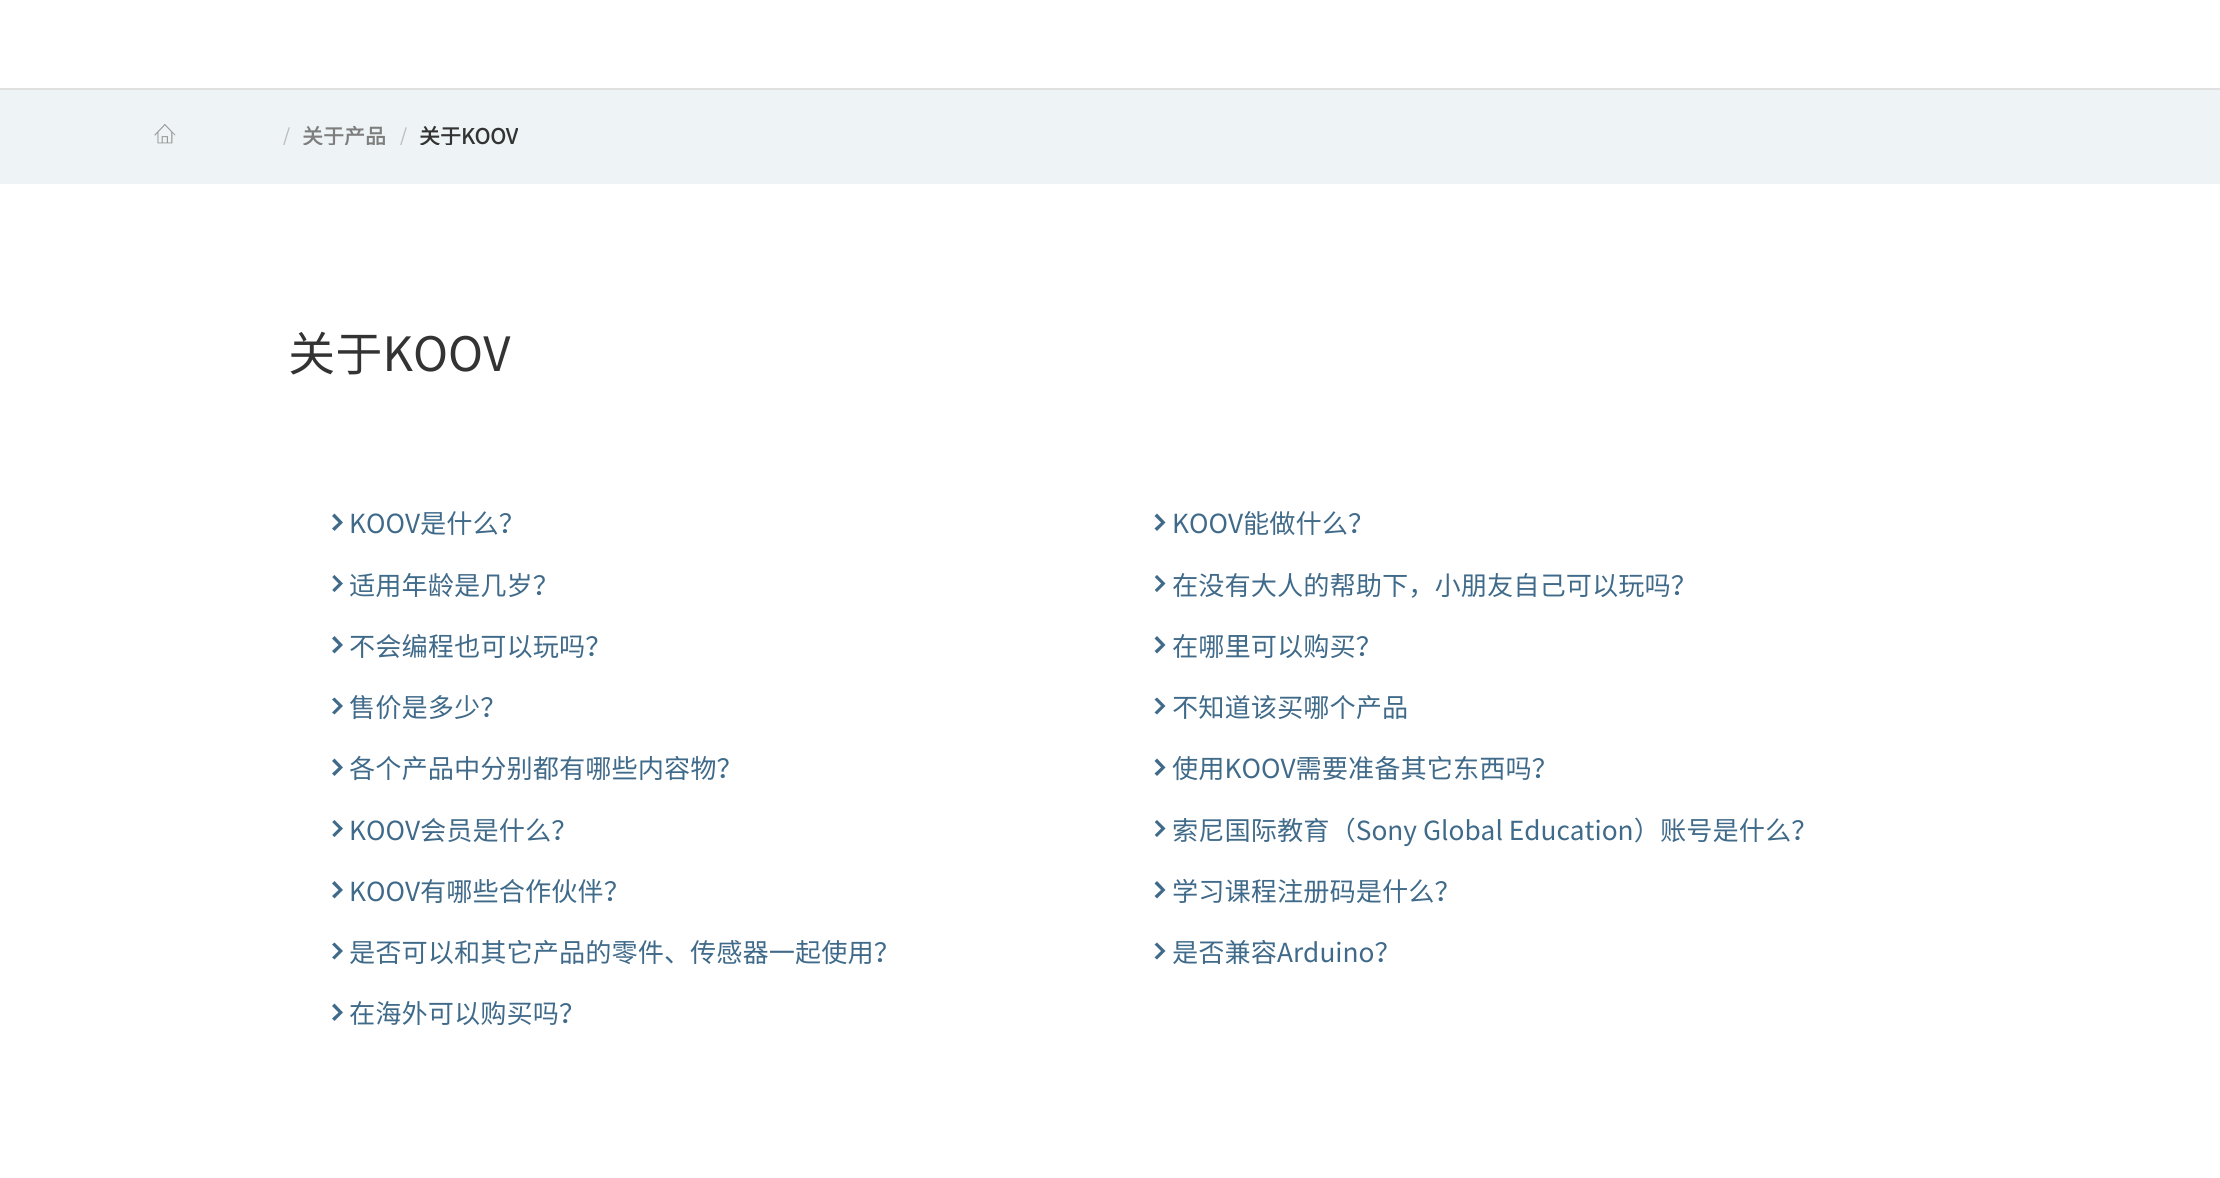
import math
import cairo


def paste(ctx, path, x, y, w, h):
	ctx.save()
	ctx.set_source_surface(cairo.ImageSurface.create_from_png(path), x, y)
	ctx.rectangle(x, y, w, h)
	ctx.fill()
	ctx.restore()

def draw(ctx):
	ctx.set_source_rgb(1, 1, 1)
	ctx.paint()
	ctx.set_source_rgb(0.933, 0.957, 0.961)
	ctx.rectangle(0, 90, 2220, 94)
	ctx.fill()
	ctx.set_source_rgb(0.878, 0.878, 0.878)
	ctx.rectangle(0, 88, 2220, 2)
	ctx.fill()
	paste(ctx, 'media/1.png', 154, 124, 22, 20)
	ctx.save()
	ctx.rectangle(275, 124, 112, 21)
	ctx.clip()
	ctx.select_font_face('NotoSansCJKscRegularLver')
	ctx.set_font_size(21)
	ctx.set_source_rgb(0.745, 0.745, 0.745)
	ctx.move_to(282, 144)
	ctx.show_text('/')
	ctx.select_font_face('NotoSansCJKscRegularLver', cairo.FONT_SLANT_NORMAL, cairo.FONT_WEIGHT_BOLD)
	ctx.set_source_rgb(0.494, 0.494, 0.494)
	ctx.move_to(302, 144)
	ctx.show_text('关于产品')
	ctx.restore()
	ctx.save()
	ctx.rectangle(392, 124, 126, 21)
	ctx.clip()
	ctx.select_font_face('NotoSansCJKscRegularLver')
	ctx.set_font_size(21)
	ctx.set_source_rgb(0.745, 0.745, 0.745)
	ctx.move_to(399, 144)
	ctx.show_text('/')
	ctx.select_font_face('NotoSansCJKscRegularLver', cairo.FONT_SLANT_NORMAL, cairo.FONT_WEIGHT_BOLD)
	ctx.set_source_rgb(0.2, 0.2, 0.2)
	ctx.move_to(419, 144)
	ctx.show_text('关于KOOV')
	ctx.restore()
	ctx.select_font_face('NotoSansCJKscRegularLver')
	ctx.set_font_size(47.25)
	ctx.set_source_rgb(0.2, 0.2, 0.2)
	ctx.move_to(288, 371)
	ctx.show_text('关于KOOV')
	ctx.set_source_rgb(0.251, 0.416, 0.537)
	ctx.new_path()
	ctx.move_to(343, 522.5)
	ctx.line_to(334.5, 531)
	ctx.line_to(332, 528.5)
	ctx.line_to(338.5, 522.5)
	ctx.line_to(332, 516)
	ctx.line_to(334.5, 513.5)
	ctx.close_path()
	ctx.fill()
	ctx.set_font_size(26.25)
	ctx.move_to(349, 533)
	ctx.show_text('KOOV是什么？')
	ctx.new_path()
	ctx.move_to(1165.5, 522.5)
	ctx.line_to(1157, 531)
	ctx.line_to(1154.5, 528.5)
	ctx.line_to(1161, 522.5)
	ctx.line_to(1154.5, 516)
	ctx.line_to(1157, 513.5)
	ctx.close_path()
	ctx.fill()
	ctx.move_to(1172, 533)
	ctx.show_text('KOOV能做什么？')
	paste(ctx, 'media/2.png', 332, 575, 11, 17)
	ctx.move_to(349, 595)
	ctx.show_text('适用年龄是几岁？')
	paste(ctx, 'media/3.png', 1154, 575, 12, 17)
	ctx.move_to(1172, 595)
	ctx.show_text('在没有大人的帮助下，小朋友自己可以玩吗？')
	ctx.new_path()
	ctx.move_to(343, 645)
	ctx.line_to(334.5, 653.5)
	ctx.line_to(332, 651)
	ctx.line_to(338.5, 645)
	ctx.line_to(332, 638.5)
	ctx.line_to(334.5, 636)
	ctx.close_path()
	ctx.fill()
	ctx.move_to(349, 656)
	ctx.show_text('不会编程也可以玩吗？')
	ctx.new_path()
	ctx.move_to(1165.5, 645)
	ctx.line_to(1157, 653.5)
	ctx.line_to(1154.5, 651)
	ctx.line_to(1161, 645)
	ctx.line_to(1154.5, 638.5)
	ctx.line_to(1157, 636)
	ctx.close_path()
	ctx.fill()
	ctx.move_to(1172, 656)
	ctx.show_text('在哪里可以购买？')
	ctx.new_path()
	ctx.move_to(343, 706)
	ctx.line_to(334.5, 714.5)
	ctx.line_to(332, 712.5)
	ctx.line_to(338.5, 706)
	ctx.line_to(332, 699.5)
	ctx.line_to(334.5, 697.5)
	ctx.close_path()
	ctx.fill()
	ctx.move_to(349, 717)
	ctx.show_text('售价是多少？')
	ctx.new_path()
	ctx.move_to(1165.5, 706)
	ctx.line_to(1157, 714.5)
	ctx.line_to(1154.5, 712.5)
	ctx.line_to(1161, 706)
	ctx.line_to(1154.5, 699.5)
	ctx.line_to(1157, 697.5)
	ctx.close_path()
	ctx.fill()
	ctx.move_to(1172, 717)
	ctx.show_text('不知道该买哪个产品')
	ctx.new_path()
	ctx.move_to(343, 767.5)
	ctx.line_to(334.5, 776)
	ctx.line_to(332, 773.5)
	ctx.line_to(338.5, 767.5)
	ctx.line_to(332, 761)
	ctx.line_to(334.5, 758.5)
	ctx.close_path()
	ctx.fill()
	ctx.move_to(349, 778)
	ctx.show_text('各个产品中分别都有哪些内容物？')
	ctx.new_path()
	ctx.move_to(1165.5, 767.5)
	ctx.line_to(1157, 776)
	ctx.line_to(1154.5, 773.5)
	ctx.line_to(1161, 767.5)
	ctx.line_to(1154.5, 761)
	ctx.line_to(1157, 758.5)
	ctx.close_path()
	ctx.fill()
	ctx.move_to(1172, 778)
	ctx.show_text('使用KOOV需要准备其它东西吗？')
	paste(ctx, 'media/2.png', 332, 820, 11, 17)
	ctx.move_to(349, 840)
	ctx.show_text('KOOV会员是什么？')
	paste(ctx, 'media/3.png', 1154, 820, 12, 17)
	ctx.move_to(1172, 840)
	ctx.show_text('索尼国际教育（Sony Global Education）账号是什么？')
	ctx.new_path()
	ctx.move_to(343, 890)
	ctx.line_to(334.5, 898.5)
	ctx.line_to(332, 896)
	ctx.line_to(338.5, 890)
	ctx.line_to(332, 883.5)
	ctx.line_to(334.5, 881)
	ctx.close_path()
	ctx.fill()
	ctx.move_to(349, 901)
	ctx.show_text('KOOV有哪些合作伙伴？')
	ctx.new_path()
	ctx.move_to(1165.5, 890)
	ctx.line_to(1157, 898.5)
	ctx.line_to(1154.5, 896)
	ctx.line_to(1161, 890)
	ctx.line_to(1154.5, 883.5)
	ctx.line_to(1157, 881)
	ctx.close_path()
	ctx.fill()
	ctx.move_to(1172, 901)
	ctx.show_text('学习课程注册码是什么？')
	ctx.new_path()
	ctx.move_to(343, 951)
	ctx.line_to(334.5, 959.5)
	ctx.line_to(332, 957.5)
	ctx.line_to(338.5, 951)
	ctx.line_to(332, 944.5)
	ctx.line_to(334.5, 942.5)
	ctx.close_path()
	ctx.fill()
	ctx.move_to(349, 962)
	ctx.show_text('是否可以和其它产品的零件')
	ctx.select_font_face('Noto Sans CJK SC')
	ctx.move_to(664, 962)
	ctx.show_text('、')
	ctx.select_font_face('NotoSansCJKscRegularLver')
	ctx.move_to(690, 962)
	ctx.show_text('传感器一起使用？')
	ctx.new_path()
	ctx.move_to(1165.5, 951)
	ctx.line_to(1157, 959.5)
	ctx.line_to(1154.5, 957.5)
	ctx.line_to(1161, 951)
	ctx.line_to(1154.5, 944.5)
	ctx.line_to(1157, 942.5)
	ctx.close_path()
	ctx.fill()
	ctx.move_to(1172, 962)
	ctx.show_text('是否兼容Arduino？')
	ctx.new_path()
	ctx.move_to(343, 1012.5)
	ctx.line_to(334.5, 1021)
	ctx.line_to(332, 1018.5)
	ctx.line_to(338.5, 1012.5)
	ctx.line_to(332, 1006)
	ctx.line_to(334.5, 1003.5)
	ctx.close_path()
	ctx.fill()
	ctx.move_to(349, 1023)
	ctx.show_text('在海外可以购买吗？')


surface = cairo.ImageSurface(cairo.FORMAT_RGB24, 2220, 1178)
ctx = cairo.Context(surface)
options = cairo.FontOptions()
options.set_hint_metrics(cairo.HINT_METRICS_OFF)
options.set_hint_style(cairo.HINT_STYLE_NONE)
ctx.set_font_options(options)
ctx.set_miter_limit(4)
draw(ctx)
surface.write_to_png('image.png')
